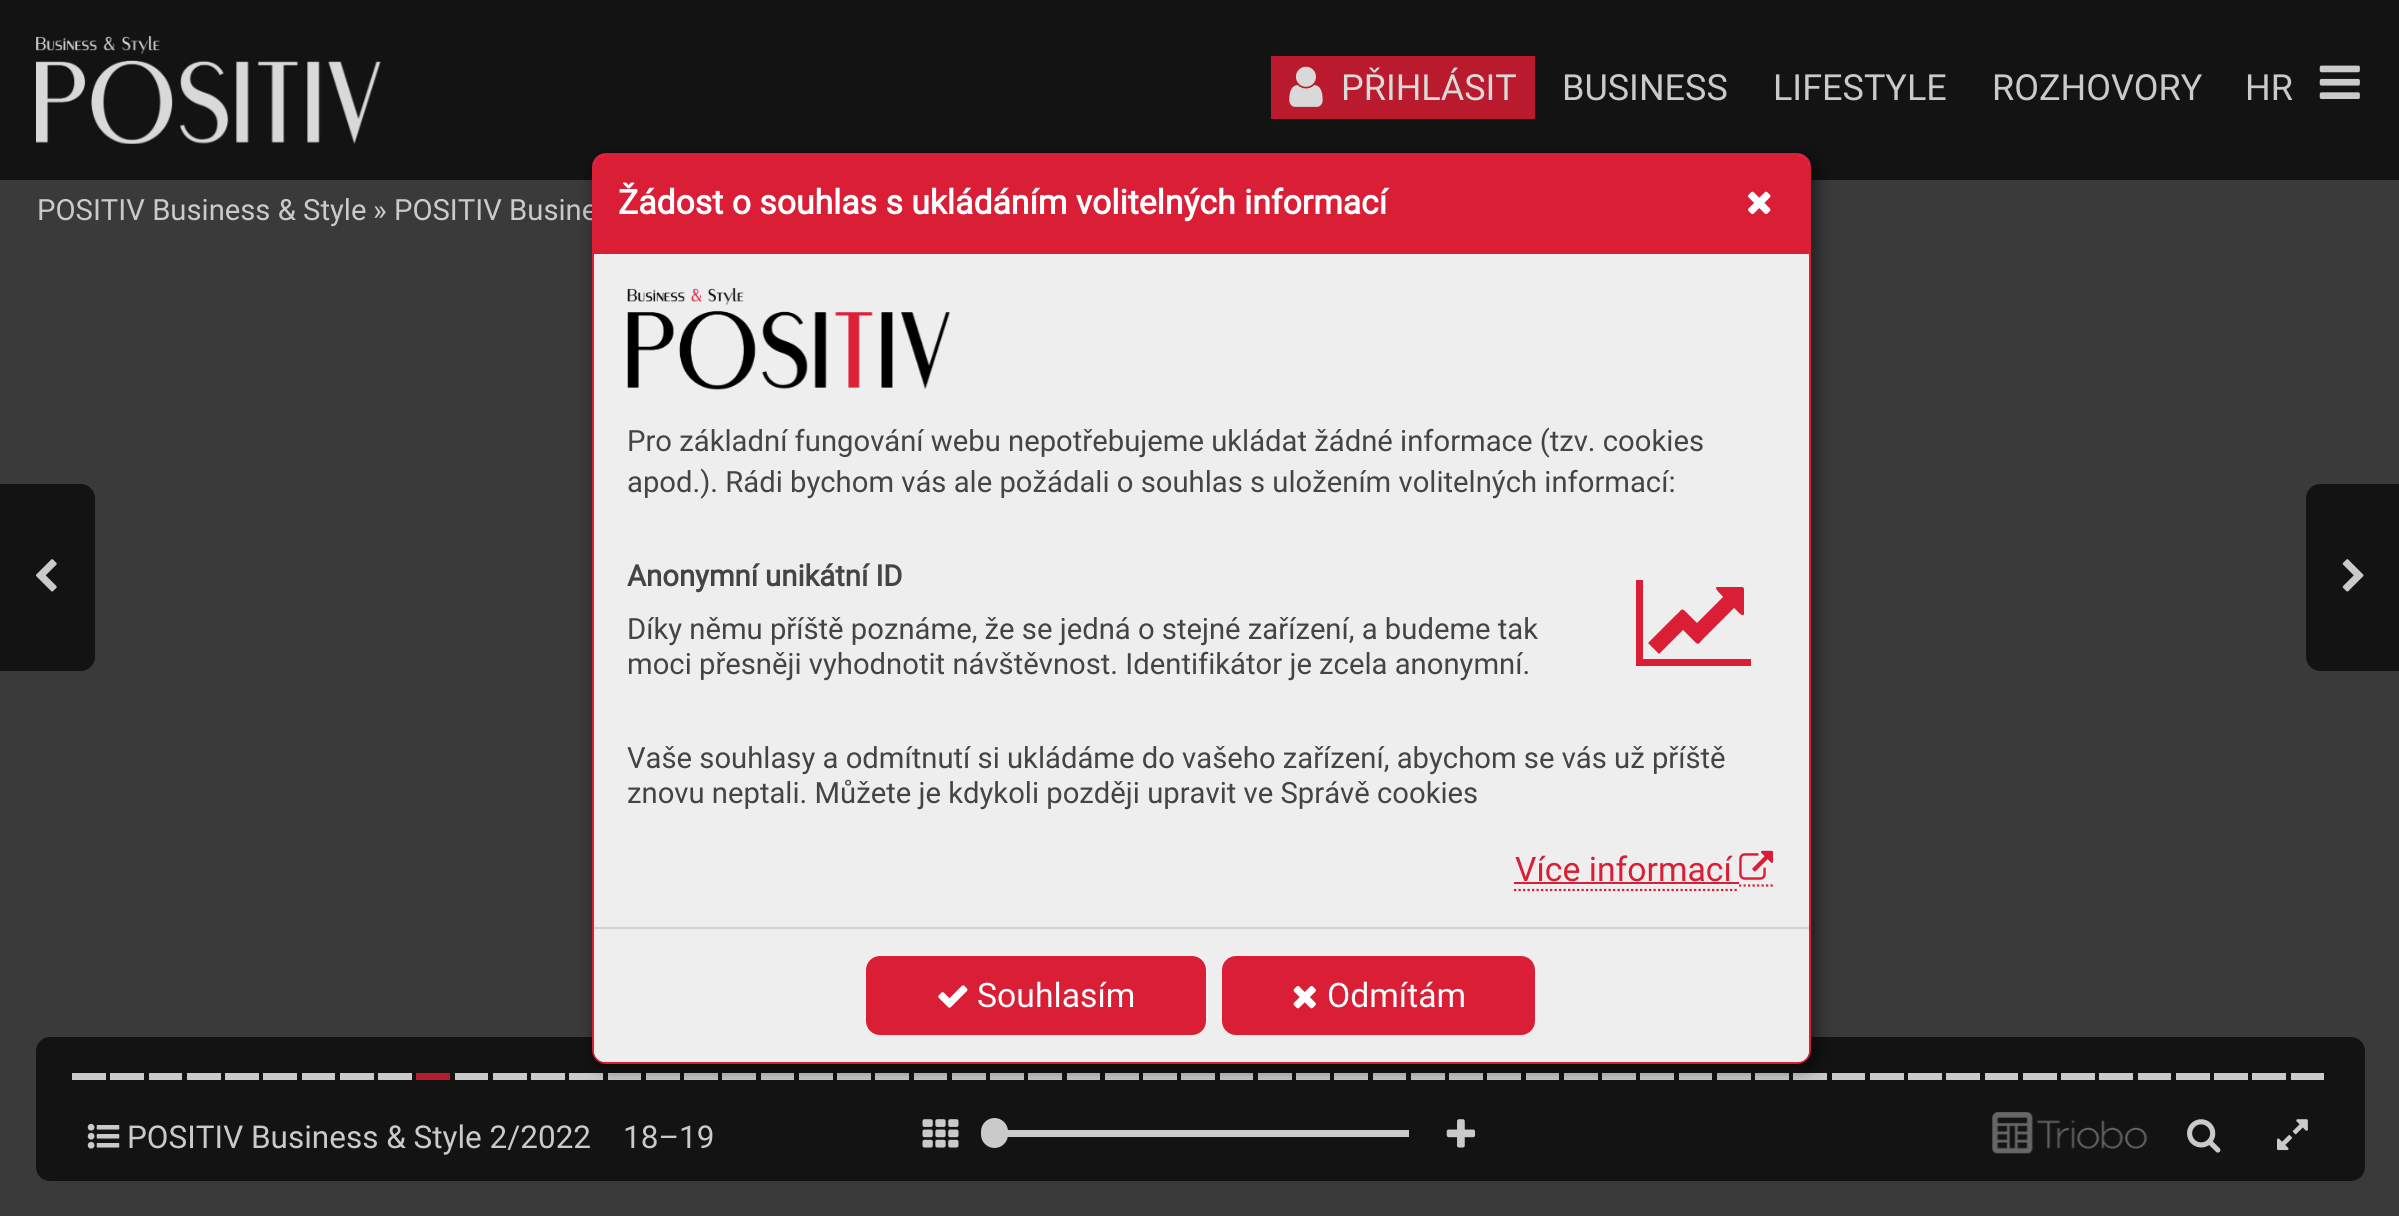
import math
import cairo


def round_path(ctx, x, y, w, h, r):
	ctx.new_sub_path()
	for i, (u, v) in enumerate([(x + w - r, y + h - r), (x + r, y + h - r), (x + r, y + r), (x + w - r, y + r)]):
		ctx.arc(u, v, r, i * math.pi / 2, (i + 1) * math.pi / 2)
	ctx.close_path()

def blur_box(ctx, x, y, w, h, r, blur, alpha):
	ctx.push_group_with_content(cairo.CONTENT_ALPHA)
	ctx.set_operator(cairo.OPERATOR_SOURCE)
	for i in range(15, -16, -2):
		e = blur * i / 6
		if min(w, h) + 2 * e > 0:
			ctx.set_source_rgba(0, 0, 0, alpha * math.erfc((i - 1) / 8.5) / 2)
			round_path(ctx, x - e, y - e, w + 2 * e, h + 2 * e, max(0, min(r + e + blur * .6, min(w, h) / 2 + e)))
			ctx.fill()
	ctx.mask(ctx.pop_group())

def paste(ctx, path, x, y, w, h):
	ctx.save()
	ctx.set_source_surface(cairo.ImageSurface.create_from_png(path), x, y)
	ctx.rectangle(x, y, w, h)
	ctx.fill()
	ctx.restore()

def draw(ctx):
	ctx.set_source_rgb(0.227, 0.227, 0.227)
	ctx.paint()
	ctx.set_source_rgb(0.078, 0.078, 0.078)
	ctx.rectangle(0, 0, 2399, 180)
	ctx.fill()
	paste(ctx, 'media/1.png', 36, 36, 345, 108)
	ctx.set_source_rgb(0.725, 0.102, 0.18)
	ctx.rectangle(1271, 56, 264, 63)
	ctx.fill()
	paste(ctx, 'media/2.png', 1289, 66, 34, 41)
	ctx.select_font_face('Roboto')
	ctx.set_font_size(36)
	ctx.set_source_rgb(0.851, 0.851, 0.851)
	ctx.move_to(1341, 100)
	ctx.show_text('PŘIHLÁSIT')
	ctx.set_source_rgb(0.792, 0.792, 0.792)
	for x, y, s in [
		(1562, 100, 'BUSINESS'),
		(1773, 100, 'LIFESTYLE'),
		(1992, 100, 'ROZHOVORY'),
		(2245, 100, 'HR'),
	]:
		ctx.move_to(x, y)
		ctx.show_text(s)
	paste(ctx, 'media/3.png', 2319, 65, 41, 34)
	ctx.set_font_size(29.25)
	ctx.move_to(37, 220)
	ctx.show_text('POSITIV Business & Style')
	ctx.move_to(373, 220)
	ctx.show_text('» POSITIV Busine')
	ctx.set_source_rgb(0.078, 0.078, 0.078)
	ctx.new_path()
	ctx.move_to(0, 484)
	ctx.line_to(81, 484)
	ctx.curve_to(88.5, 484, 95, 490.5, 95, 498)
	ctx.line_to(95, 657)
	ctx.curve_to(95, 664.5, 88.5, 671, 81, 671)
	ctx.line_to(0, 671)
	ctx.close_path()
	ctx.fill()
	paste(ctx, 'media/4.png', 36, 559, 21, 33)
	ctx.new_path()
	ctx.move_to(2320, 484)
	ctx.line_to(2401, 484)
	ctx.line_to(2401, 671)
	ctx.line_to(2320, 671)
	ctx.curve_to(2312.5, 671, 2306, 664.5, 2306, 657)
	ctx.line_to(2306, 498)
	ctx.curve_to(2306, 490.5, 2312.5, 484, 2320, 484)
	ctx.close_path()
	ctx.fill()
	paste(ctx, 'media/5.png', 2342, 559, 22, 33)
	round_path(ctx, 36, 1037, 2329, 144, 14)
	ctx.fill()
	ctx.set_source_rgb(0.792, 0.792, 0.792)
	ctx.rectangle(72, 1073, 34, 7)
	ctx.rectangle(110, 1073, 34, 7)
	ctx.rectangle(149, 1073, 33, 7)
	ctx.rectangle(187, 1073, 34, 7)
	ctx.rectangle(225, 1073, 34, 7)
	ctx.rectangle(263, 1073, 34, 7)
	ctx.rectangle(302, 1073, 33, 7)
	ctx.rectangle(340, 1073, 34, 7)
	ctx.rectangle(378, 1073, 34, 7)
	ctx.rectangle(455, 1073, 33, 7)
	ctx.rectangle(493, 1073, 34, 7)
	ctx.rectangle(531, 1073, 34, 7)
	ctx.rectangle(569, 1073, 34, 7)
	ctx.rectangle(608, 1073, 33, 7)
	ctx.rectangle(646, 1073, 34, 7)
	ctx.rectangle(684, 1073, 34, 7)
	ctx.rectangle(722, 1073, 34, 7)
	ctx.rectangle(761, 1073, 33, 7)
	ctx.rectangle(799, 1073, 34, 7)
	ctx.rectangle(837, 1073, 34, 7)
	ctx.rectangle(875, 1073, 34, 7)
	ctx.rectangle(914, 1073, 33, 7)
	ctx.rectangle(952, 1073, 34, 7)
	ctx.rectangle(990, 1073, 34, 7)
	ctx.rectangle(1028, 1073, 34, 7)
	ctx.rectangle(1067, 1073, 33, 7)
	ctx.rectangle(1105, 1073, 34, 7)
	ctx.rectangle(1143, 1073, 34, 7)
	ctx.rectangle(1181, 1073, 34, 7)
	ctx.rectangle(1220, 1073, 33, 7)
	ctx.rectangle(1258, 1073, 34, 7)
	ctx.rectangle(1296, 1073, 34, 7)
	ctx.rectangle(1334, 1073, 34, 7)
	ctx.rectangle(1373, 1073, 33, 7)
	ctx.rectangle(1411, 1073, 34, 7)
	ctx.rectangle(1449, 1073, 34, 7)
	ctx.rectangle(1487, 1073, 34, 7)
	ctx.rectangle(1526, 1073, 33, 7)
	ctx.rectangle(1564, 1073, 34, 7)
	ctx.rectangle(1602, 1073, 34, 7)
	ctx.rectangle(1640, 1073, 34, 7)
	ctx.rectangle(1679, 1073, 33, 7)
	ctx.rectangle(1717, 1073, 34, 7)
	ctx.rectangle(1755, 1073, 34, 7)
	ctx.rectangle(1793, 1073, 34, 7)
	ctx.rectangle(1832, 1073, 33, 7)
	ctx.rectangle(1870, 1073, 34, 7)
	ctx.rectangle(1908, 1073, 34, 7)
	ctx.rectangle(1946, 1073, 34, 7)
	ctx.rectangle(1985, 1073, 33, 7)
	ctx.rectangle(2023, 1073, 34, 7)
	ctx.rectangle(2061, 1073, 34, 7)
	ctx.rectangle(2099, 1073, 34, 7)
	ctx.rectangle(2138, 1073, 33, 7)
	ctx.rectangle(2176, 1073, 34, 7)
	ctx.rectangle(2214, 1073, 34, 7)
	ctx.rectangle(2252, 1073, 34, 7)
	ctx.rectangle(2291, 1073, 33, 7)
	ctx.fill()
	ctx.set_source_rgb(0.725, 0.102, 0.18)
	ctx.rectangle(416, 1073, 34, 7)
	ctx.fill()
	paste(ctx, 'media/6.png', 87, 1123, 33, 26)
	ctx.set_font_size(31.5)
	ctx.set_source_rgb(0.792, 0.792, 0.792)
	ctx.move_to(127, 1148)
	ctx.show_text('POSITIV Business & Style 2/2022')
	ctx.move_to(623, 1148)
	ctx.show_text('18–19')
	paste(ctx, 'media/7.png', 922, 1119, 37, 29)
	ctx.rectangle(1007, 1130, 402, 7)
	ctx.fill()
	round_path(ctx, 981, 1118, 27, 30, 13.5)
	ctx.fill()
	paste(ctx, 'media/8.png', 1446, 1119, 30, 29)
	paste(ctx, 'media/9.png', 1992, 1112, 156, 42)
	paste(ctx, 'media/10.png', 2187, 1119, 34, 34)
	paste(ctx, 'media/11.png', 2277, 1119, 31, 32)
	ctx.set_source_rgb(0, 0, 0)
	blur_box(ctx, 596, 158, 1220, 911, 14, 8.5, 0.53)
	ctx.set_source_rgb(0.933, 0.933, 0.933)
	round_path(ctx, 593, 154, 1217, 909, 13)
	ctx.fill_preserve()
	ctx.set_source_rgb(0.855, 0.118, 0.212)
	ctx.stroke()
	ctx.new_path()
	ctx.move_to(605, 155)
	ctx.line_to(1798, 155)
	ctx.curve_to(1804, 155, 1809, 160, 1809, 166)
	ctx.line_to(1809, 254)
	ctx.line_to(594, 254)
	ctx.line_to(594, 166)
	ctx.curve_to(594, 160, 599, 155, 605, 155)
	ctx.close_path()
	ctx.fill()
	ctx.select_font_face('Roboto', cairo.FONT_SLANT_NORMAL, cairo.FONT_WEIGHT_BOLD)
	ctx.set_font_size(33.75)
	ctx.set_source_rgb(1, 1, 1)
	ctx.move_to(618, 214)
	ctx.show_text('Žádost o souhlas s ukládáním volitelných informací')
	paste(ctx, 'media/12.png', 1748, 191, 23, 24)
	paste(ctx, 'media/13.png', 627, 288, 323, 102)
	ctx.select_font_face('Roboto')
	ctx.set_font_size(29.25)
	ctx.set_source_rgb(0.267, 0.267, 0.267)
	ctx.move_to(627, 451)
	ctx.show_text('Pro základní fungování webu nepotřebujeme ukládat žádné informace (tzv. cookies')
	ctx.move_to(627, 492)
	ctx.show_text('apod.). Rádi bychom vás ale požádali o souhlas s uložením volitelných informací:')
	ctx.select_font_face('Roboto', cairo.FONT_SLANT_NORMAL, cairo.FONT_WEIGHT_BOLD)
	ctx.move_to(627, 586)
	ctx.show_text('Anonymní unikátní ID')
	ctx.set_source_rgb(0.855, 0.118, 0.212)
	ctx.new_path()
	ctx.move_to(1751, 659)
	ctx.line_to(1751, 666)
	ctx.line_to(1636, 666)
	ctx.line_to(1636, 580)
	ctx.line_to(1643, 580)
	ctx.line_to(1643, 659)
	ctx.close_path()
	ctx.move_to(1744, 589)
	ctx.line_to(1744, 614)
	ctx.curve_to(1743, 619, 1735, 608, 1734, 608)
	ctx.line_to(1704, 638)
	ctx.curve_to(1698, 644, 1699, 646, 1694, 641)
	ctx.line_to(1683, 630)
	ctx.line_to(1659, 654)
	ctx.line_to(1648, 643)
	ctx.line_to(1676, 615)
	ctx.curve_to(1682, 610, 1681, 607, 1686, 612)
	ctx.line_to(1697, 623)
	ctx.line_to(1723, 597)
	ctx.curve_to(1723, 596, 1713, 588, 1717, 587)
	ctx.line_to(1742, 587)
	ctx.curve_to(1743, 587, 1744, 588, 1744, 589)
	ctx.close_path()
	ctx.fill()
	ctx.select_font_face('Roboto')
	ctx.set_source_rgb(0.267, 0.267, 0.267)
	for x, y, s in [
		(627, 639, 'Díky němu příště poznáme, že se jedná o stejné zařízení, a budeme tak'),
		(627, 674, 'moci přesněji vyhodnotit návštěvnost. Identifikátor je zcela anonymní.'),
		(627, 768, 'Vaše souhlasy a odmítnutí si ukládáme do vašeho zařízení, abychom se vás už příště'),
		(627, 803, 'znovu neptali. Můžete je kdykoli později upravit ve Správě cookies'),
	]:
		ctx.move_to(x, y)
		ctx.show_text(s)
	ctx.new_path()
	ctx.move_to(1514, 890)
	ctx.line_to(1739, 890)
	ctx.set_source_rgb(0.855, 0.118, 0.212)
	ctx.set_line_width(2.2)
	ctx.set_dash([2.25, 2.25])
	ctx.stroke()
	ctx.new_path()
	ctx.move_to(1739, 885.5)
	ctx.line_to(1775, 885.5)
	ctx.stroke()
	ctx.set_font_size(33.75)
	ctx.move_to(1515, 881)
	ctx.show_text('Více informací')
	ctx.rectangle(1514, 882, 225, 2)
	ctx.fill()
	paste(ctx, 'media/14.png', 1739, 850, 34, 30)
	ctx.set_source_rgb(0.933, 0.933, 0.933)
	ctx.new_path()
	ctx.move_to(594, 927)
	ctx.line_to(1809, 927)
	ctx.line_to(1809, 1051)
	ctx.curve_to(1809, 1057, 1804, 1062, 1798, 1062)
	ctx.line_to(605, 1062)
	ctx.curve_to(599, 1062, 594, 1057, 594, 1051)
	ctx.close_path()
	ctx.fill()
	ctx.set_source_rgb(0.827, 0.827, 0.827)
	ctx.rectangle(594, 927, 1215, 2)
	ctx.fill()
	ctx.set_source_rgb(0.855, 0.118, 0.212)
	round_path(ctx, 867, 957, 338, 77, 13)
	ctx.fill_preserve()
	ctx.set_line_width(2)
	ctx.set_dash([])
	ctx.stroke()
	paste(ctx, 'media/15.png', 938, 985, 30, 23)
	ctx.set_source_rgb(1, 1, 1)
	ctx.move_to(977, 1007)
	ctx.show_text('Souhlasím')
	ctx.set_source_rgb(0.855, 0.118, 0.212)
	round_path(ctx, 1223, 957, 311, 77, 13)
	ctx.fill_preserve()
	ctx.stroke()
	paste(ctx, 'media/16.png', 1293, 986, 23, 23)
	ctx.set_source_rgb(1, 1, 1)
	ctx.move_to(1327, 1007)
	ctx.show_text('Odmítám')


surface = cairo.ImageSurface(cairo.FORMAT_RGB24, 2399, 1216)
ctx = cairo.Context(surface)
options = cairo.FontOptions()
options.set_hint_metrics(cairo.HINT_METRICS_OFF)
options.set_hint_style(cairo.HINT_STYLE_NONE)
ctx.set_font_options(options)
ctx.set_miter_limit(4)
draw(ctx)
surface.write_to_png('image.png')
